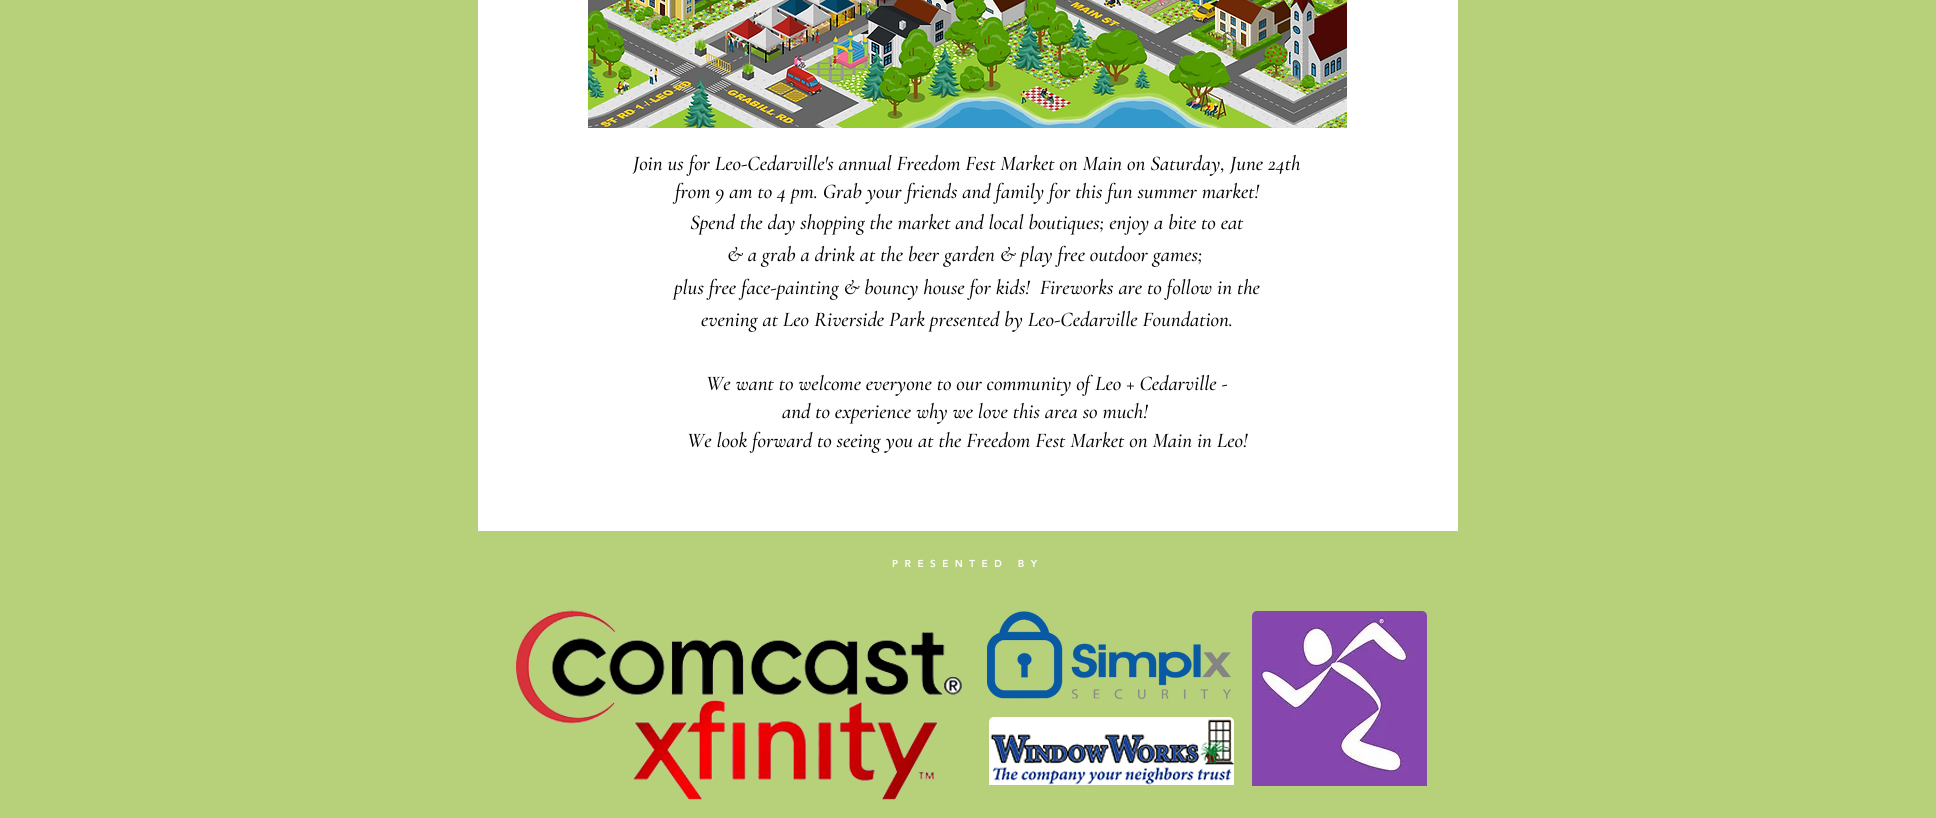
import math
import cairo


def write_spaced(ctx, x, y, s, letter, word):
	ctx.move_to(x, y)
	for ch in s:
		ctx.show_text(ch)
		ctx.rel_move_to(letter + word * (ch == ' '), 0)

def paste(ctx, path, x, y, w, h):
	ctx.save()
	ctx.set_source_surface(cairo.ImageSurface.create_from_png(path), x, y)
	ctx.rectangle(x, y, w, h)
	ctx.fill()
	ctx.restore()

def draw(ctx):
	ctx.set_source_rgb(0.718, 0.82, 0.482)
	ctx.paint()
	ctx.set_source_rgb(1, 1, 1)
	ctx.rectangle(478, 0, 980, 531)
	ctx.fill()
	paste(ctx, 'media/1.png', 588, 0, 759, 128)
	ctx.select_font_face('Cormorant Garamond Medium', cairo.FONT_SLANT_ITALIC)
	ctx.set_font_size(21)
	ctx.set_source_rgb(0, 0, 0)
	for x, y, s in [
		(633, 170, 'Join us for Leo-Cedarville\'s annual Freedom Fest Market on Main on Saturday, June 24th'),
		(675, 198, 'from 9 am to 4 pm. Grab your friends and family for this fun summer market!'),
		(690, 229, 'Spend the day shopping the market and local boutiques; enjoy a bite to eat'),
		(727, 261, '& a grab a drink at the beer garden & play free outdoor games;'),
		(674, 294, 'plus free face-painting & bouncy house for kids!  Fireworks are to follow in the'),
		(701, 326, 'evening at Leo Riverside Park presented by Leo-Cedarville Foundation.'),
		(706, 390, 'We want to welcome everyone to our community of Leo + Cedarville -'),
		(782, 418, 'and to experience why we love this area so much!'),
		(687, 447, 'We look forward to seeing you at the Freedom Fest Market on Main in Leo!'),
	]:
		ctx.move_to(x, y)
		ctx.show_text(s)
	ctx.select_font_face('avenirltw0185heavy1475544 Black')
	ctx.set_font_size(10)
	ctx.set_source_rgb(1, 1, 1)
	write_spaced(ctx, 892, 567, 'PRESENTED BY', 6.5, 0)
	paste(ctx, 'media/2.png', 515, 610, 447, 190)
	paste(ctx, 'media/3.png', 987, 611, 244, 88)
	paste(ctx, 'media/4.png', 1252, 611, 175, 175)
	paste(ctx, 'media/5.png', 989, 717, 245, 68)


surface = cairo.ImageSurface(cairo.FORMAT_RGB24, 1936, 818)
ctx = cairo.Context(surface)
options = cairo.FontOptions()
options.set_hint_metrics(cairo.HINT_METRICS_OFF)
options.set_hint_style(cairo.HINT_STYLE_NONE)
ctx.set_font_options(options)
ctx.set_miter_limit(4)
draw(ctx)
surface.write_to_png('image.png')
